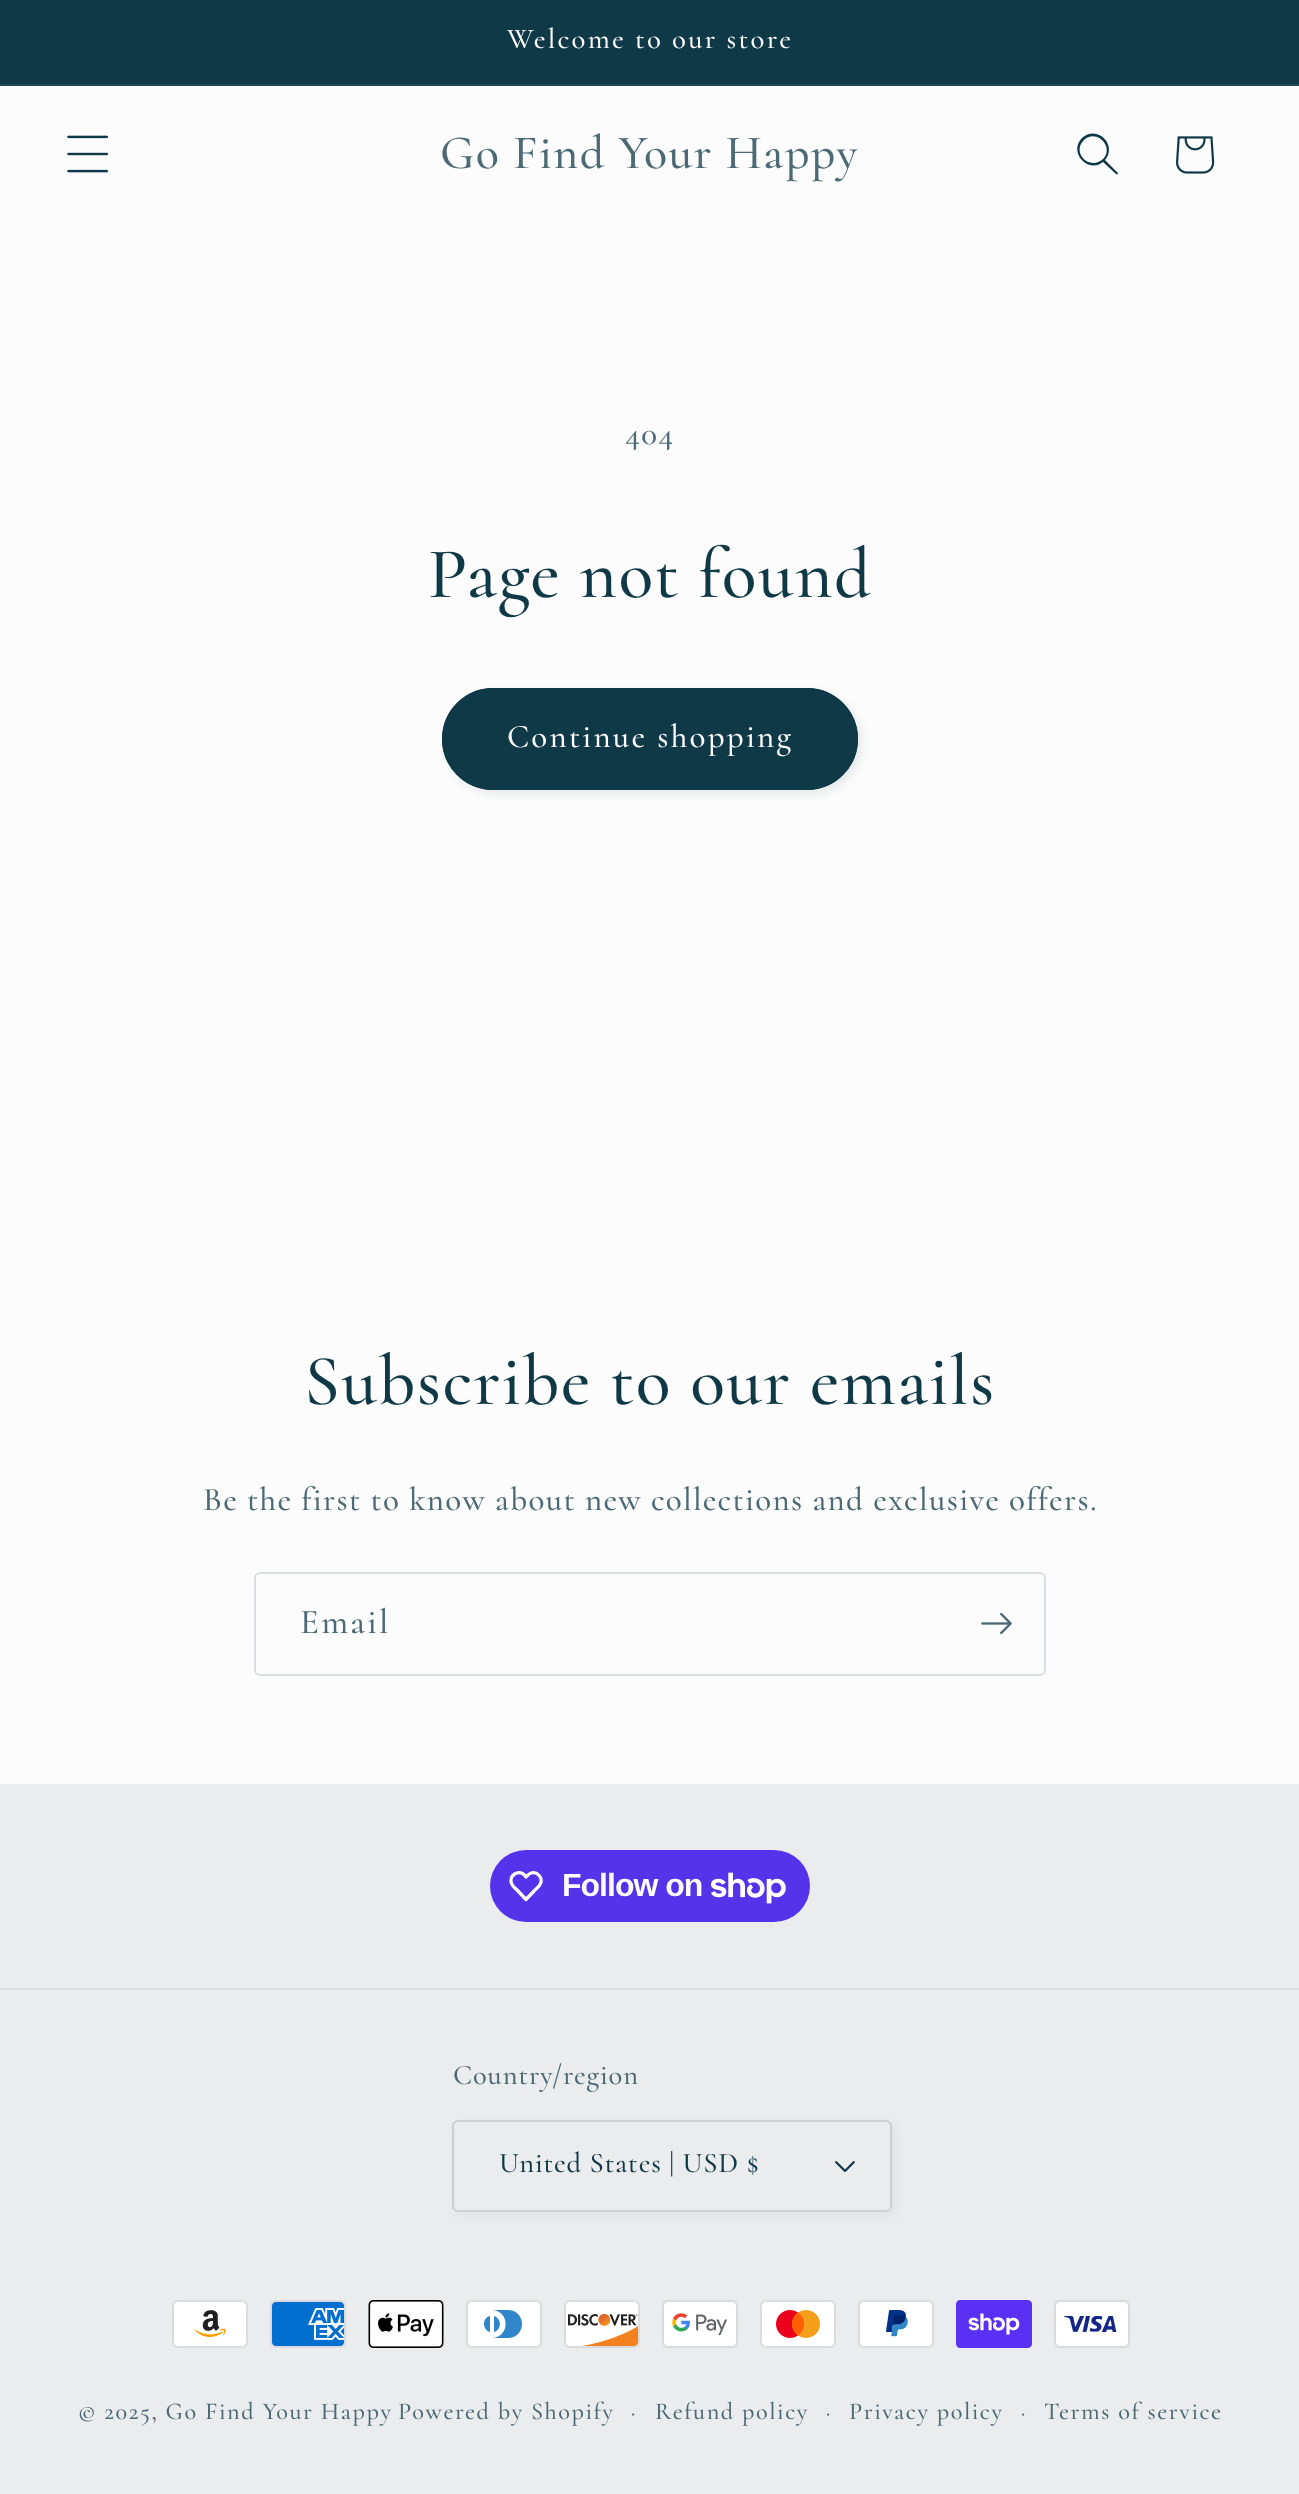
<svg xmlns="http://www.w3.org/2000/svg" width="1299" height="2494" viewBox="0 0 1299 2494">
  <rect width="100%" height="100%" fill="#fcfcfc"/>
  <path d="M0 0h1299v84H0z" fill="#103948"/>
  <path d="M0 84h1299v2H0z" fill="#234956"/>
  <image x="67" y="135" width="41" height="38" href="img/1.png"/>
  <path d="M1103 159C1090 171 1071 153 1084 140C1096 128 1115 147 1103 159M1103 162C1088 174 1068 152 1082 138C1097 124 1118 145 1105 160L1118 173C1118 174 1117 175 1116 174Z" fill="#103948" fill-rule="evenodd"/>
  <image x="1176" y="136" width="39" height="38" href="img/2.png"/>
  <rect x="446" y="692" width="416" height="102" rx="51" fill="#1039481a" filter="blur(5px)"/>
  <rect x="442" y="688" width="416" height="102" rx="51" fill="#103948"/>
  <rect x="443" y="689" width="414" height="100" rx="50" fill="none" stroke="#103948" stroke-width="2"/>
  <rect x="255" y="1573" width="790" height="102" rx="5" fill="none" stroke="#d9dfe1" stroke-width="2"/>
  <image x="981" y="1612" width="31" height="23" href="img/3.png"/>
  <path d="M0 1784h1299v710H0z" fill="#ebeced"/>
  <rect x="490" y="1850" width="320" height="72" rx="36" fill="#5433eb"/>
  <path d="M524.5 1875L526 1877C527.5 1875.5 529 1873.5 531 1873C537 1871 543 1877.5 540.5 1883.5C539.5 1886.5 536.5 1888.5 534.5 1890.5L526 1899.5L517.5 1890.5C515.5 1888.5 512.5 1886.5 511.5 1883.5C508.5 1875.5 518.5 1869 524.5 1875Z" fill="none" stroke="#fff" stroke-width="3.3" stroke-linejoin="round"/>
  <image x="711" y="1872" width="75" height="32" href="img/4.png"/>
  <path d="M0 1988h1299v2H0z" fill="#d9dee0"/>
  <rect x="456" y="2124" width="440" height="92" rx="6" fill="#1039480d" filter="blur(5px)"/>
  <rect x="452" y="2120" width="440" height="92" rx="6" fill="#ebeced"/>
  <image x="835" y="2161" width="20" height="11" href="img/5.png"/>
  <rect x="453" y="2121" width="438" height="90" rx="5" fill="none" stroke="#cad1d4" stroke-width="2"/>
  <image x="172" y="2300" width="76" height="48" href="img/6.png"/>
  <image x="270" y="2300" width="76" height="48" href="img/7.png"/>
  <image x="368" y="2300" width="76" height="48" href="img/8.png"/>
  <image x="466" y="2300" width="76" height="48" href="img/9.png"/>
  <image x="564" y="2300" width="76" height="48" href="img/10.png"/>
  <image x="662" y="2300" width="76" height="48" href="img/11.png"/>
  <image x="760" y="2300" width="76" height="48" href="img/12.png"/>
  <image x="858" y="2300" width="76" height="48" href="img/13.png"/>
  <image x="956" y="2300" width="76" height="48" href="img/14.png"/>
  <image x="1054" y="2300" width="76" height="48" href="img/15.png"/>
  <text x="507" y="48" font-family="Cormorant" font-size="28.75" font-weight="500" letter-spacing="2.25" fill="#fcfcfc">Welcome to our store</text>
  <text x="440" y="168" font-family="Cormorant" font-size="48" font-weight="500" letter-spacing="1.4" fill="#4b6a75">Go Find Your Happy</text>
  <text x="625" y="444" font-family="Cormorant" font-size="33" font-weight="500" letter-spacing="1.32" fill="#4b6a75">404</text>
  <text x="428" y="597" font-family="Cormorant" font-size="72" font-weight="500" letter-spacing="1.4" fill="#103948">Page not found</text>
  <text x="507" y="747" font-family="Cormorant" font-size="33" font-weight="500" letter-spacing="2.25" fill="#fcfcfc">Continue shopping</text>
  <text x="304" y="1404" font-family="Cormorant" font-size="72" font-weight="500" letter-spacing="1.4" fill="#103948">Subscribe to our emails</text>
  <text x="203" y="1510" font-family="Cormorant" font-size="33" font-weight="500" letter-spacing="1.32" fill="#4b6a75">Be the first to know about new collections and exclusive offers.</text>
  <text x="300" y="1633" font-family="Cormorant" font-size="35" font-weight="500" letter-spacing="2.25" fill="#4b6a75">Email</text>
  <text x="562" y="1896" font-family="Liberation Sans" font-size="32" font-weight="bold" letter-spacing="-1" fill="#fcfcfc">Follow on</text>
  <text x="453" y="2084" font-family="Cormorant" font-size="28.5" font-weight="500" letter-spacing="0.9" fill="#4b6a75">Country/region</text>
  <text x="499" y="2172" font-family="Cormorant" font-size="28.5" font-weight="500" letter-spacing="0.9" fill="#103948">United States | USD $</text>
  <g font-family="Cormorant" font-size="24.25" font-weight="500" letter-spacing="1.55" fill="#4b6a75">
    <text x="78" y="2419">© 2025, Go Find Your Happy</text>
    <text x="398" y="2419">Powered by Shopify</text>
  </g>
  <text x="631" y="2419" font-family="Cormorant" font-size="22" font-weight="500" letter-spacing="1.55" fill="#4b6a75">·</text>
  <text x="655" y="2419" font-family="Cormorant" font-size="24.25" font-weight="500" letter-spacing="1.55" fill="#4b6a75">Refund policy</text>
  <text x="826" y="2419" font-family="Cormorant" font-size="22" font-weight="500" letter-spacing="1.55" fill="#4b6a75">·</text>
  <text x="849" y="2419" font-family="Cormorant" font-size="24.25" font-weight="500" letter-spacing="1.55" fill="#4b6a75">Privacy policy</text>
  <text x="1021" y="2419" font-family="Cormorant" font-size="22" font-weight="500" letter-spacing="1.55" fill="#4b6a75">·</text>
  <text x="1044" y="2419" font-family="Cormorant" font-size="24.25" font-weight="500" letter-spacing="1.55" fill="#4b6a75">Terms of service</text>
</svg>
